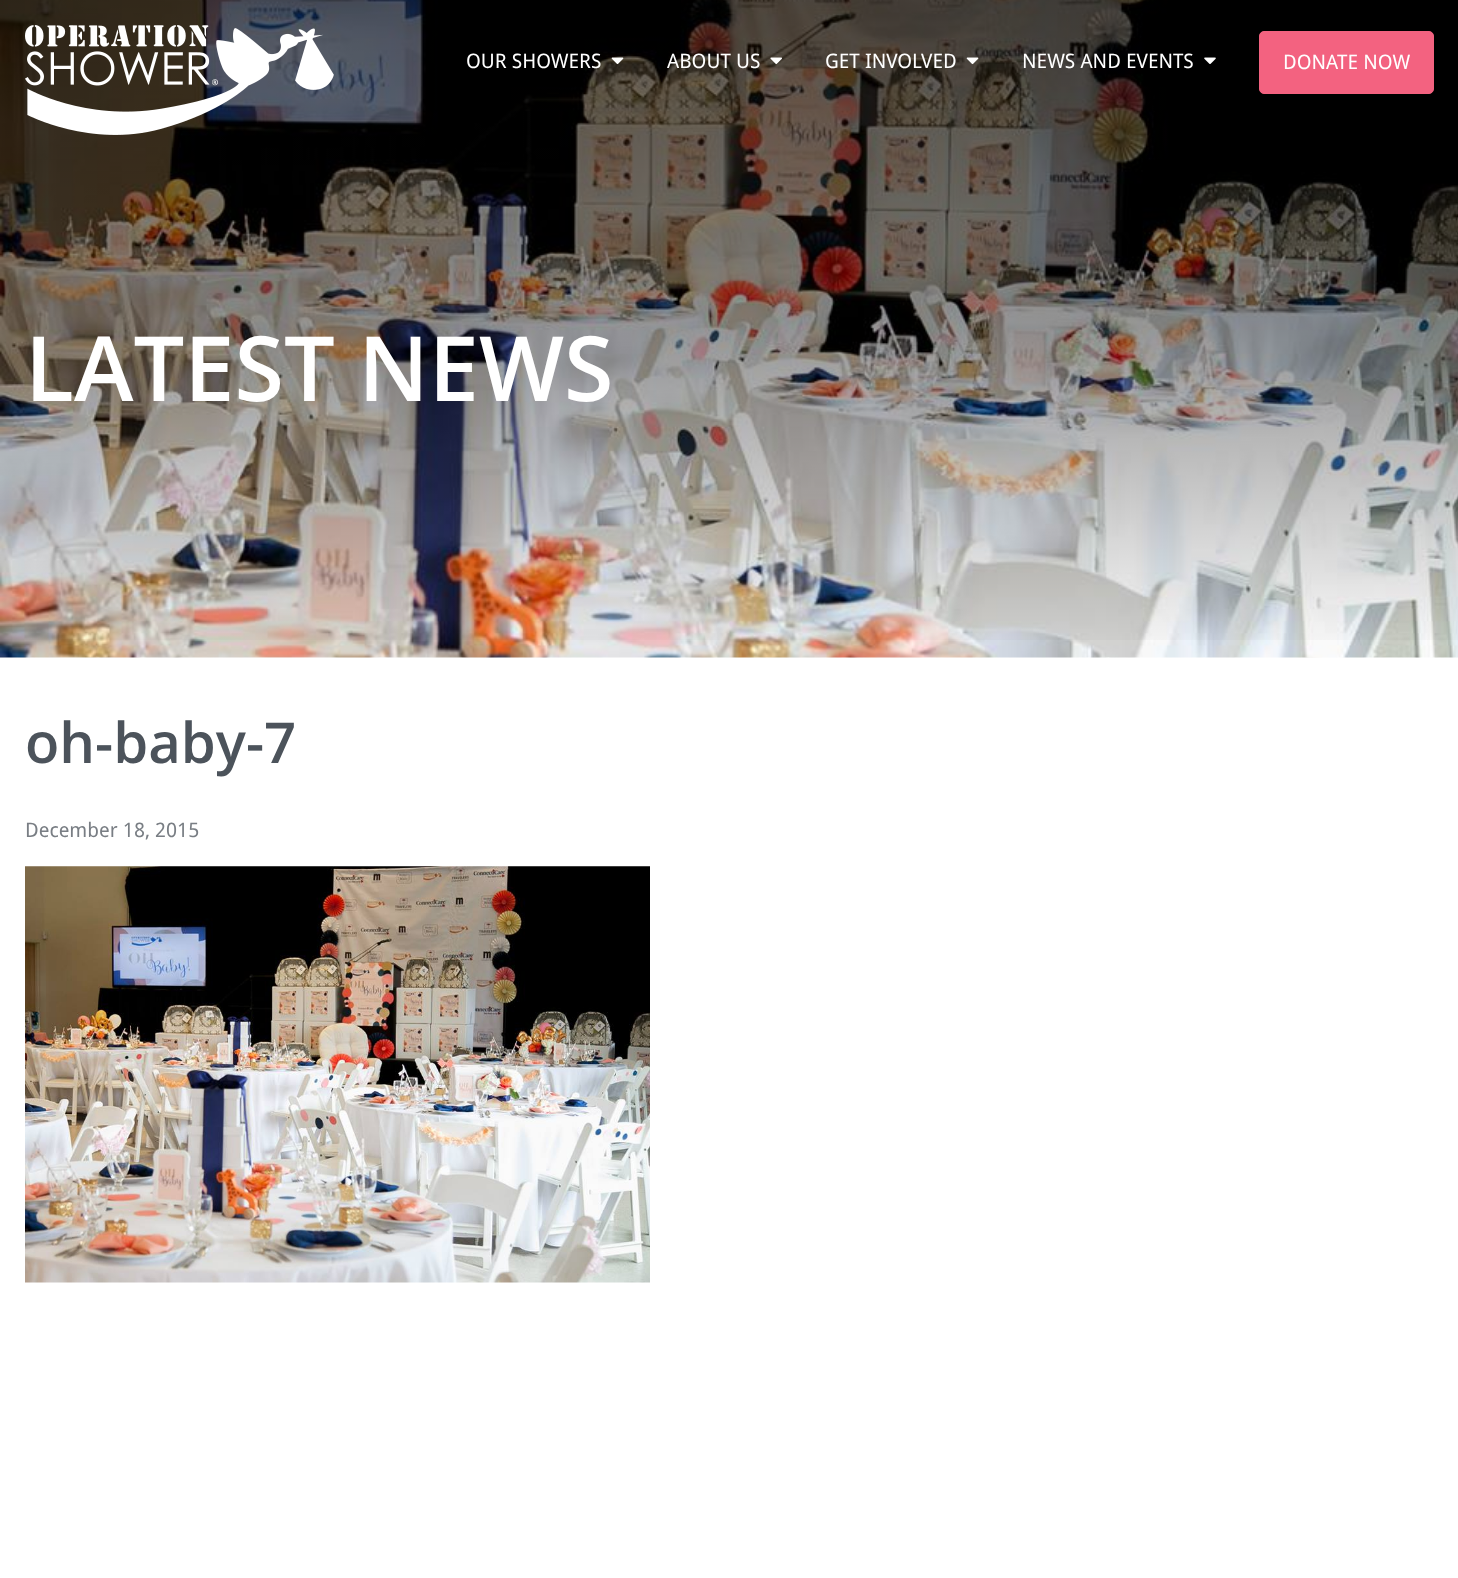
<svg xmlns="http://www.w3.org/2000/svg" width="1458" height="1578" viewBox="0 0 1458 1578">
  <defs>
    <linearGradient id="g1" gradientUnits="userSpaceOnUse" x1="729" y1="0" x2="729" y2="658"><stop offset="0" stop-color="#000" stop-opacity="0.6"/><stop offset="0.5" stop-color="#000" stop-opacity="0.4"/><stop offset="1" stop-color="#000" stop-opacity="0"/></linearGradient>
  </defs>
  <rect width="100%" height="100%" fill="#fff"/>
  <image x="0" y="0" width="1458" height="658" href="img/6.png"/>
  <path d="M0 0h1458v640H0z" fill="url(#g1)"/>
  <image x="25" y="25" width="309" height="110" href="img/1.png"/>
  <image x="611" y="57" width="13" height="8" href="img/2.png"/>
  <image x="770" y="57" width="12" height="8" href="img/3.png"/>
  <image x="966" y="57" width="13" height="8" href="img/4.png"/>
  <image x="1204" y="57" width="12" height="7" href="img/5.png"/>
  <rect x="1259.5" y="31.5" width="174" height="62" rx="4.5" fill="#f36280" stroke="#f36280"/>
  <image x="25" y="866" width="625" height="417" href="img/7.png"/>
  <g font-family="Droid Sans" font-size="20" fill="#fff">
    <text x="466" y="68">OUR SHOWERS</text>
    <text x="667" y="68">ABOUT US</text>
    <text x="825" y="68">GET INVOLVED</text>
    <text x="1022" y="68">NEWS AND EVENTS</text>
    <text x="1283" y="69">DONATE NOW</text>
  </g>
  <text x="25" y="401" font-family="Open Sans" font-size="90" font-weight="600" fill="#fff">LATEST NEWS</text>
  <text x="25" y="763" font-family="Open Sans" font-size="56.25" font-weight="600" fill="#4c535b">oh-baby-7</text>
  <text x="25" y="837" font-family="Droid Sans" font-size="20" fill="#797e84">December 18, 2015</text>
</svg>
